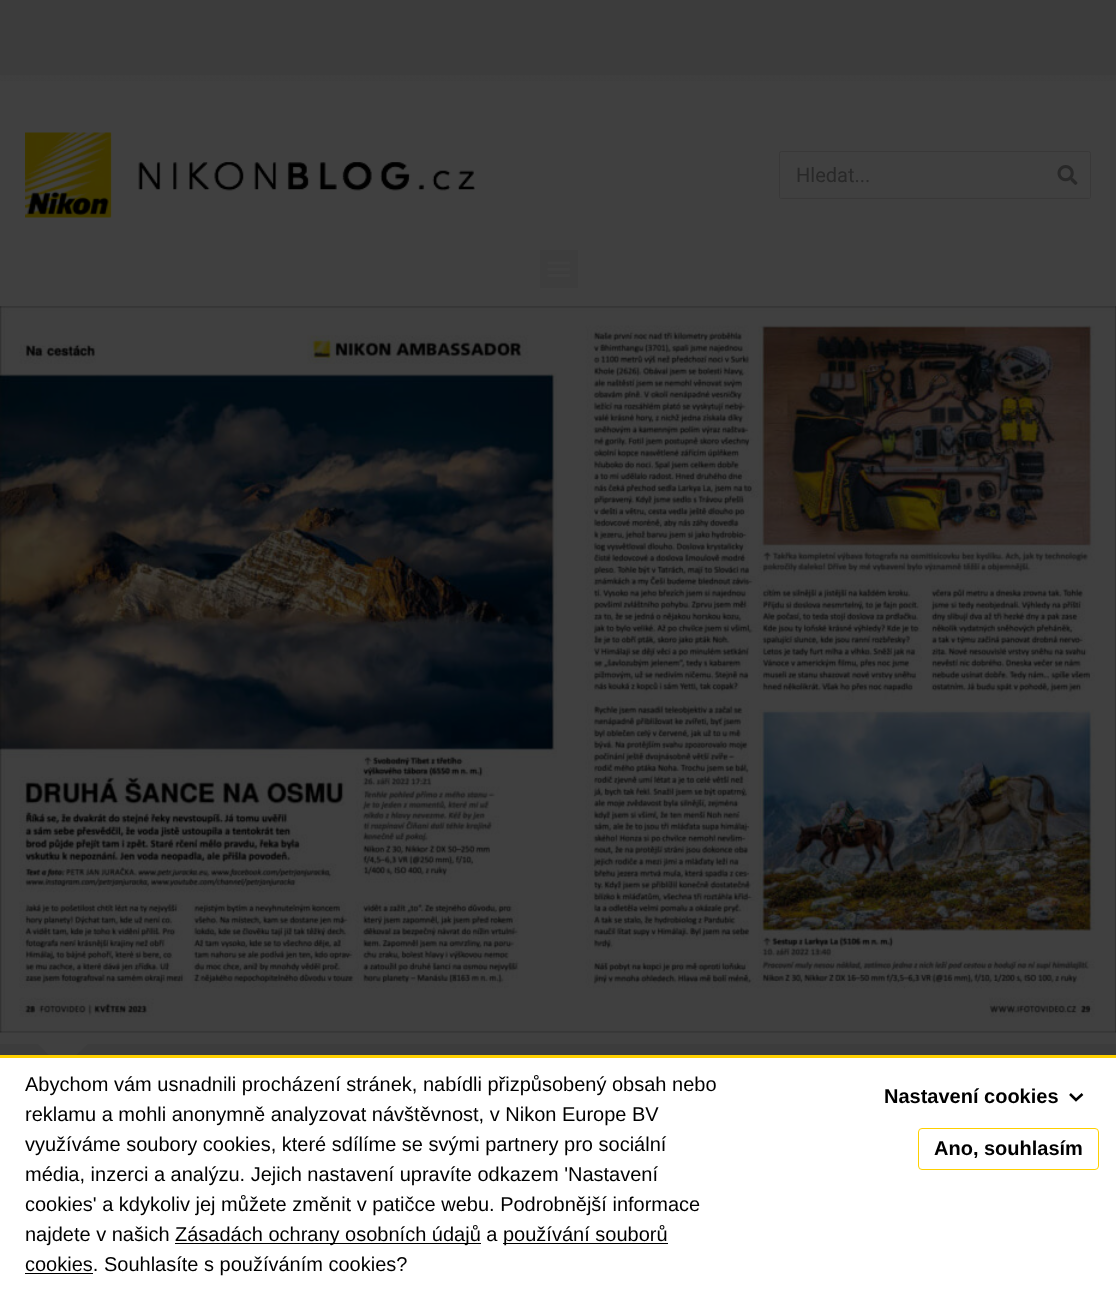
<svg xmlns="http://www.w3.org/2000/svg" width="1116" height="1292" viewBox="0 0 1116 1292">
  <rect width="100%" height="100%" fill="#3c3c3c"/>
  <path d="M0 75h1116v231H0z" fill="#404040"/>
  <image x="0" y="75" width="1116" height="6" href="img/1.png"/>
  <image x="25" y="132" width="450" height="86" href="img/2.png"/>
  <rect x="779.5" y="151.5" width="311" height="47" rx="2" fill="none" stroke="#393838"/>
  <path d="M780 197h310v1H780z" fill="#3f3f3f"/>
  <image x="1057" y="165" width="21" height="20" href="img/3.png"/>
  <path d="M540 250h38v38H540z" fill="#3d3d3d"/>
  <image x="547" y="261" width="23" height="16" href="img/4.png"/>
  <path d="M0 306h1116v738H0z" fill="#404040"/>
  <image x="0" y="306" width="1116" height="727" href="img/5.png"/>
  <path d="M38 1044H88L62 1069Z" fill="#404040"/>
  <path d="M0 1058h1116v234H0z" fill="#fff"/>
  <path d="M0 1055h1116v3H0z" fill="#fed000"/>
  <path d="M175 1243h306v1H175z" fill="#000"/>
  <path d="M503 1243h165v1H503z" fill="#000"/>
  <path d="M25 1273h68v1H25z" fill="#000"/>
  <path d="M1070 1094L1076 1100L1082.5 1094" fill="none" stroke="#000" stroke-width="2.5"/>
  <rect x="918.5" y="1128.5" width="180" height="41" rx="3.5" fill="none" stroke="#fed000"/>
  <text x="796" y="182" font-family="Roboto" font-size="20" fill="#282828">Hledat...</text>
  <g font-family="Liberation Sans" font-size="20" fill="#000">
    <text x="25" y="1091">Abychom vám usnadnili procházení stránek, nabídli přizpůsobený obsah nebo</text>
    <text x="25" y="1121">reklamu a mohli anonymně analyzovat návštěvnost, v Nikon Europe BV</text>
    <text x="25" y="1151">využíváme soubory cookies, které sdílíme se svými partnery pro sociální</text>
    <text x="25" y="1181">média, inzerci a analýzu. Jejich nastavení upravíte odkazem 'Nastavení</text>
    <text x="25" y="1211">cookies' a kdykoliv jej můžete změnit v patičce webu. Podrobnější informace</text>
    <text x="25" y="1241">najdete v našich</text>
    <text x="175" y="1241">Zásadách ochrany osobních údajů a</text>
    <text x="503" y="1241">používání souborů</text>
    <text x="25" y="1271">cookies. Souhlasíte s používáním cookies?</text>
  </g>
  <g font-family="Liberation Sans" font-size="20" font-weight="bold" fill="#000">
    <text x="884" y="1103">Nastavení cookies</text>
    <text x="934" y="1155">Ano, souhlasím</text>
  </g>
</svg>
